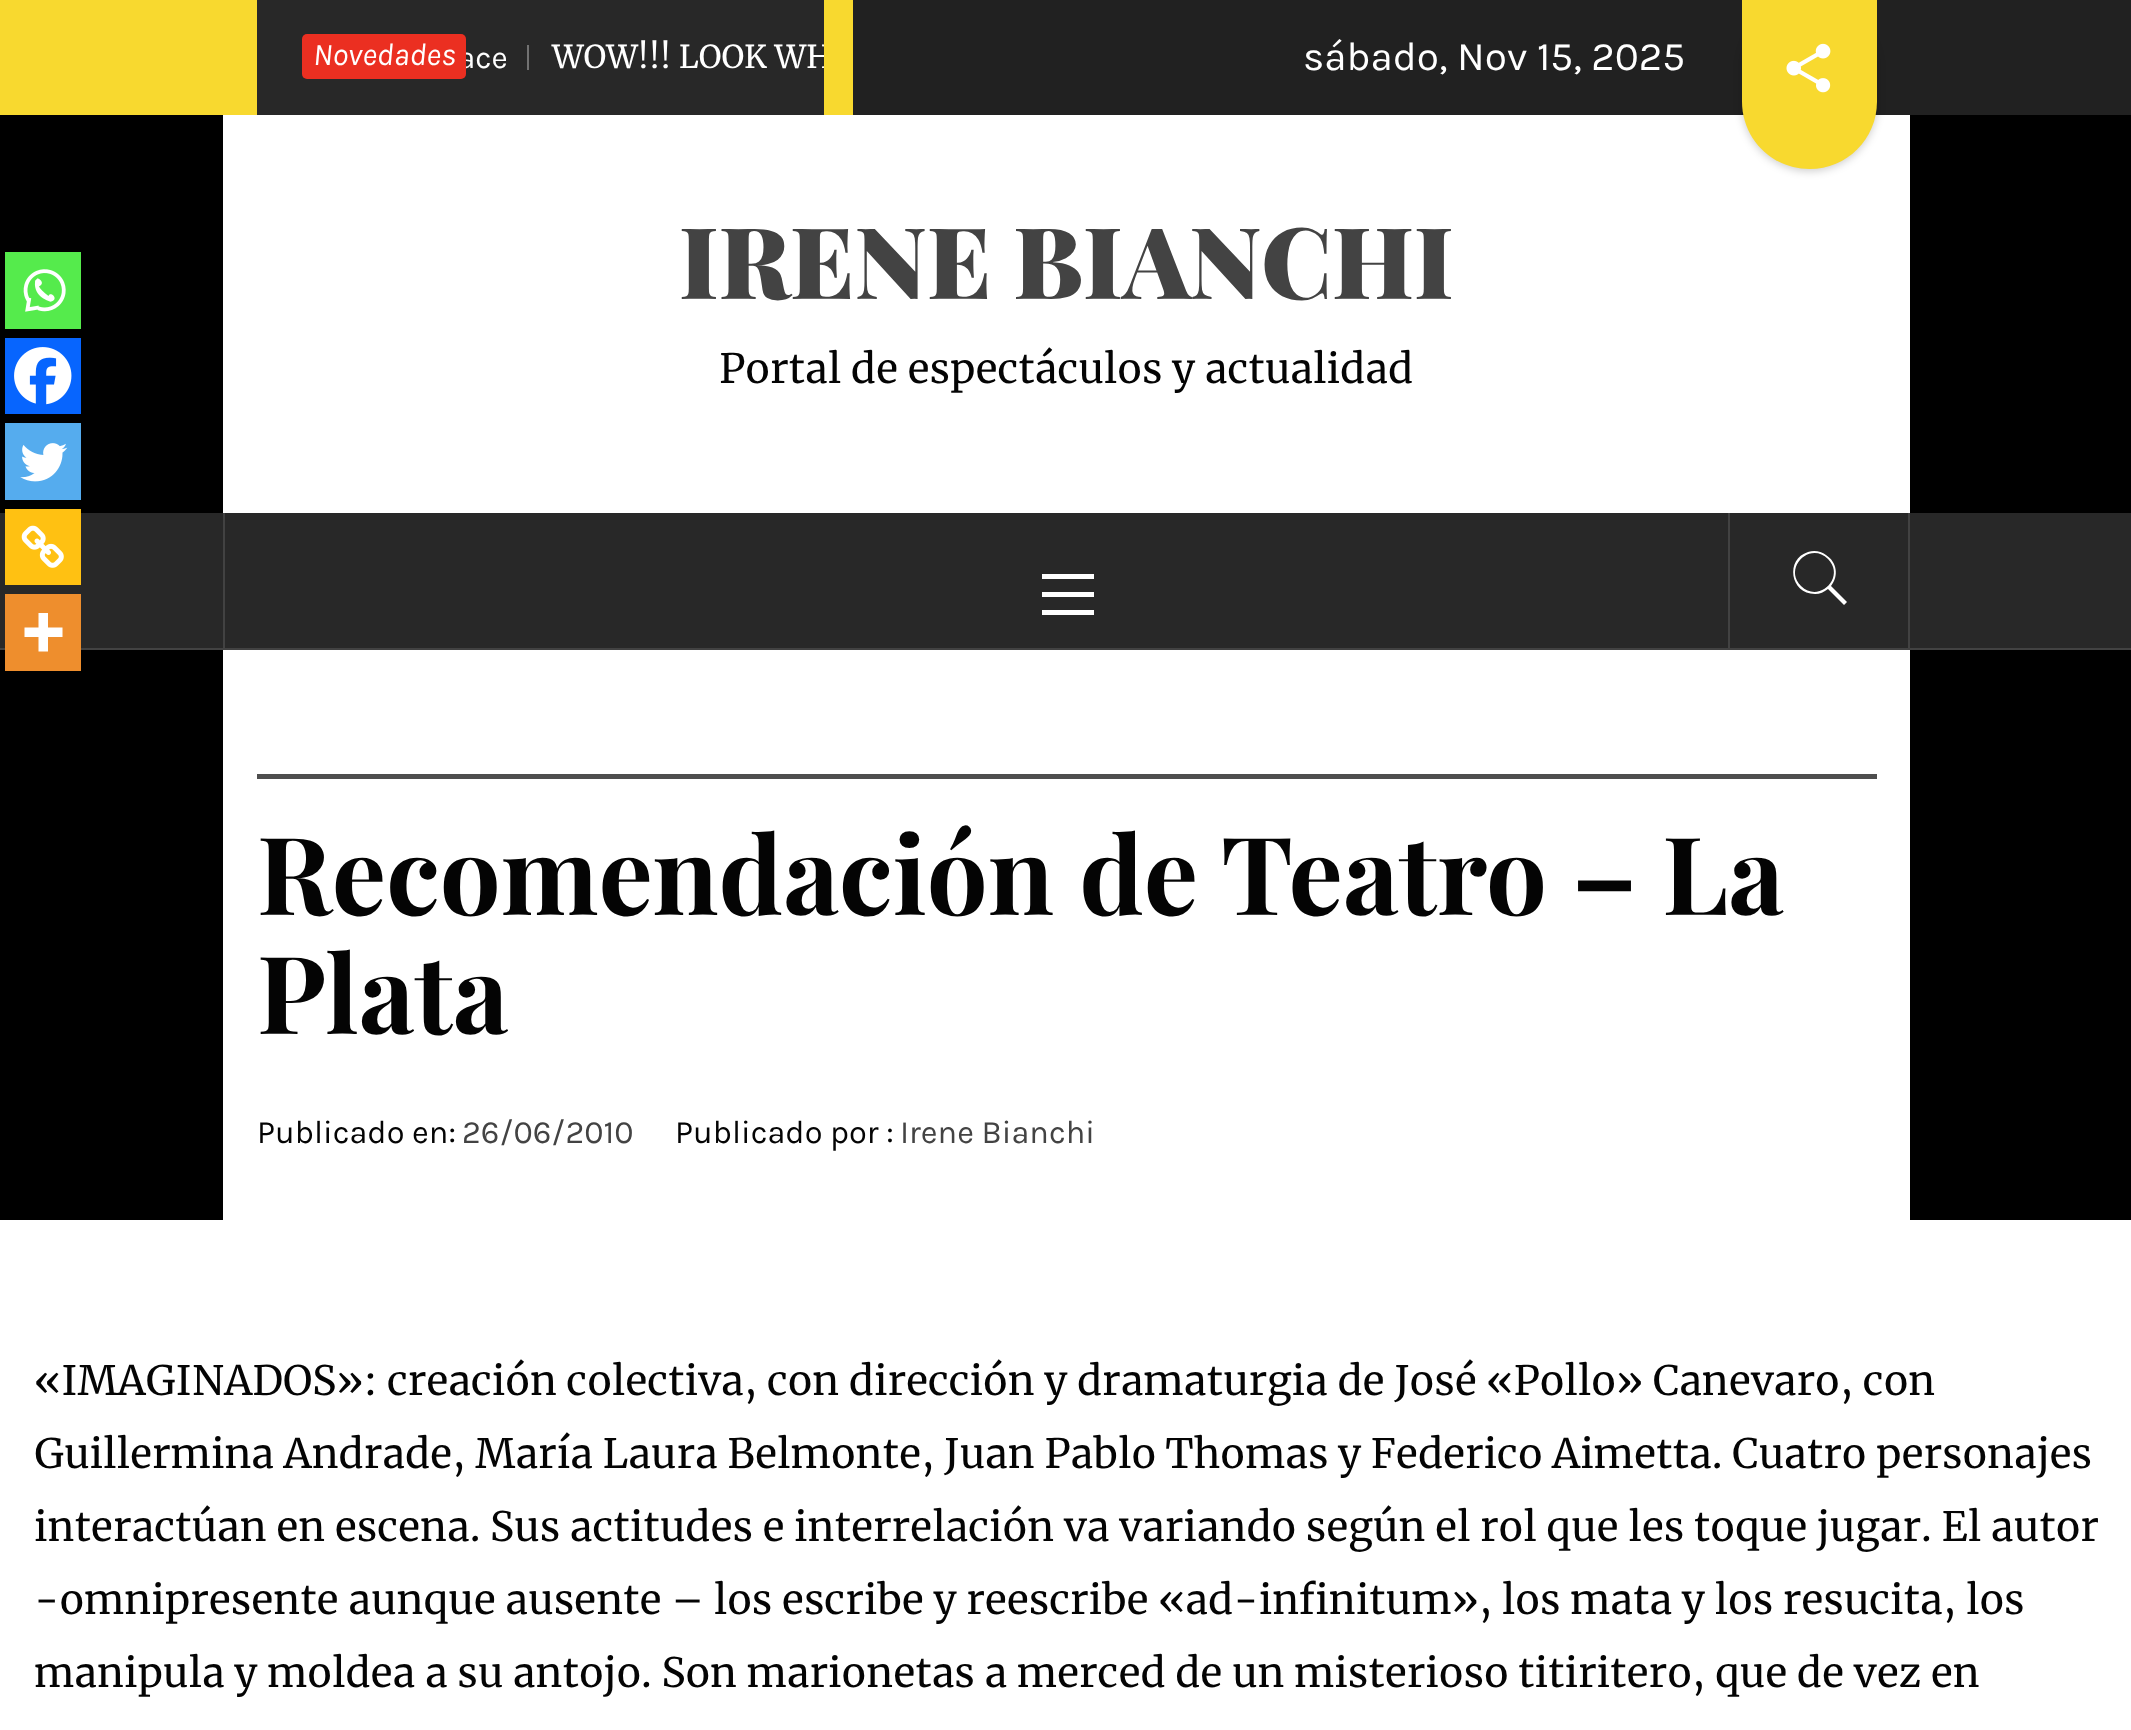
<svg xmlns="http://www.w3.org/2000/svg" width="2131" height="1730" viewBox="0 0 2131 1730">
  <defs>
    <clipPath id="clip1"><path d="M257 0h567v115H257z"/></clipPath>
  </defs>
  <rect width="100%" height="100%" fill="#000"/>
  <path d="M0 0h853v115H0z" fill="#f8d92f"/>
  <path d="M853 0h1278v115H853z" fill="#212121"/>
  <path d="M257 0h567v115H257z" fill="#282828"/>
  <path d="M527 45h2v25H527z" fill="#727272"/>
  <path d="M223 115h1687v398H223z" fill="#fff"/>
  <rect x="1742" y="2" width="135" height="169" rx="67.5" fill="#00000033" filter="blur(4.5px)"/>
  <path d="M1742 0H1877V101.5C1877 139 1847 169 1809.5 169C1772 169 1742 139 1742 101.5Z" fill="#f8d92f"/>
  <image x="1786" y="43" width="45" height="50" href="img/1.png"/>
  <path d="M0 513h2131v135H0z" fill="#282828"/>
  <path d="M0 648h2131v2H0z" fill="#424242"/>
  <path d="M1908 513h2v135H1908z" fill="#424242"/>
  <path d="M223 513h2v135H223z" fill="#424242"/>
  <path d="M1042 592h52v5H1042z" fill="#fff"/>
  <path d="M1042 574h52v5H1042z" fill="#fff"/>
  <path d="M1042 610h52v5H1042z" fill="#fff"/>
  <path d="M1728 513h2v135H1728z" fill="#424242"/>
  <path d="M1847 602L1844 605L1828 589C1824 592 1820 594 1815 594C1790 594 1785 559 1808 552C1814 550 1821 551 1826 555C1837 562 1839 576 1831 586ZM1801 586C1819 604 1846 577 1828 559C1810 541 1783 568 1801 586Z" fill="#fff"/>
  <path d="M223 650h1687v570H223z" fill="#fff"/>
  <path d="M257 774h1620v5H257z" fill="#4e4e4e"/>
  <path d="M0 1220h2131v510H0z" fill="#fff"/>
  <path d="M5 252h76v77H5z" fill="#55eb4c"/>
  <image x="23" y="269" width="43" height="43" href="img/2.png"/>
  <path d="M5 338h76v76H5z" fill="#0765fe"/>
  <image x="14" y="347" width="58" height="58" href="img/3.png"/>
  <path d="M5 423h76v77H5z" fill="#55acee"/>
  <image x="20" y="443" width="48" height="39" href="img/4.png"/>
  <path d="M5 509h76v76H5z" fill="#ffc112"/>
  <image x="21" y="525" width="43" height="43" href="img/5.png"/>
  <path d="M5 594h76v77H5z" fill="#ee8e2d"/>
  <path d="M48 627.5V613H38.5V627.5H24.5V637H38.5V651.5H48V637H62.5V627.5Z" fill="#fff" fill-rule="evenodd"/>
  <text x="458" y="68" font-family="Karla" font-size="31.5" fill="#fff">ace</text>
  <rect x="302" y="34" width="164" height="45" rx="5" fill="#eb2f21"/>
  <text x="313" y="65" font-family="Karla" font-size="31.5" font-style="italic" fill="#fff">Novedades</text>
  <g clip-path="url(#clip1)">
    <text x="552" y="68" font-family="Merriweather" font-size="31.5" fill="#fff">WOW!!! LOOK WH</text>
  </g>
  <text x="1303" y="70" font-family="Karla" font-size="40.5" fill="#fff">sábado, Nov 15, 2025</text>
  <text x="679" y="299" font-family="Playfair Display" font-size="99" font-weight="900" fill="#434343">IRENE BIANCHI</text>
  <text x="719" y="383" font-family="Merriweather" font-size="40.5" fill="#040404">Portal de espectáculos y actualidad</text>
  <g font-family="Playfair Display" font-size="108" font-weight="bold" fill="#040404">
    <text x="257" y="915">Recomendación de Teatro – La</text>
    <text x="257" y="1034">Plata</text>
  </g>
  <text x="257" y="1143" font-family="Karla" font-size="32.5" fill="#040404">Publicado en:</text>
  <text x="462" y="1143" font-family="Karla" font-size="32.5" fill="#434343">26/06/2010</text>
  <text x="675" y="1143" font-family="Karla" font-size="32.5" fill="#040404">Publicado por :</text>
  <text x="900" y="1143" font-family="Karla" font-size="32.5" fill="#434343">Irene Bianchi</text>
  <g font-family="Merriweather" font-size="40.5" fill="#040404">
    <text x="34" y="1395">«IMAGINADOS»: creación colectiva, con dirección y dramaturgia de José «Pollo» Canevaro, con</text>
    <text x="34" y="1468">Guillermina Andrade, María Laura Belmonte, Juan Pablo Thomas y Federico Aimetta. Cuatro personajes</text>
    <text x="34" y="1541">interactúan en escena. Sus actitudes e interrelación va variando según el rol que les toque jugar. El autor</text>
    <text x="34" y="1614">-omnipresente aunque ausente – los escribe y reescribe «ad-infinitum», los mata y los resucita, los</text>
    <text x="34" y="1687">manipula y moldea a su antojo. Son marionetas a merced de un misterioso titiritero, que de vez en</text>
  </g>
</svg>
